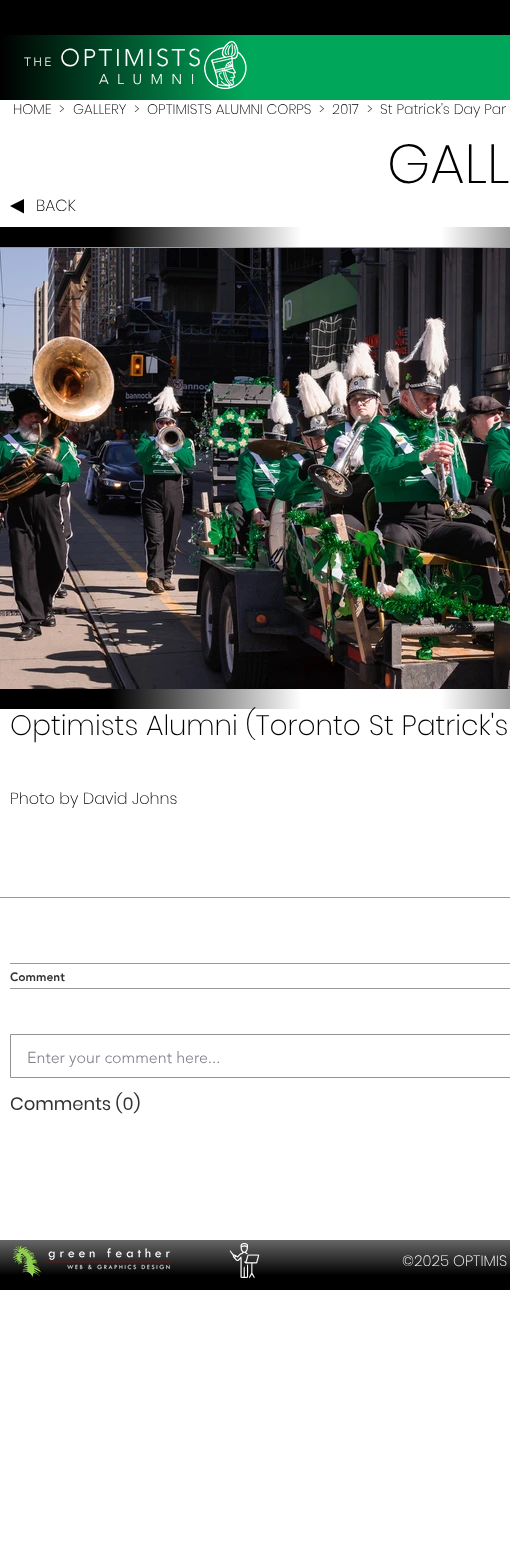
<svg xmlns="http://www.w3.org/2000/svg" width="510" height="1541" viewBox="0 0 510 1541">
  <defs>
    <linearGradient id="g1" gradientUnits="userSpaceOnUse" x1="0" y1="68" x2="245" y2="67"><stop offset="0" stop-color="#000"/><stop offset="1" stop-color="#00a659"/></linearGradient>
    <linearGradient id="g2" gradientUnits="userSpaceOnUse" x1="0" y1="468" x2="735" y2="468"><stop offset="0.15" stop-color="#000"/><stop offset="0.41" stop-color="#fff"/><stop offset="0.6" stop-color="#fff"/><stop offset="0.85" stop-color="#000"/></linearGradient>
    <linearGradient id="g3" gradientUnits="userSpaceOnUse" x1="490" y1="1290" x2="490" y2="1240"><stop offset="0.29" stop-color="#000"/><stop offset="1" stop-color="#666"/></linearGradient>
  </defs>
  <rect width="100%" height="100%" fill="#fff"/>
  <path d="M0 0h510v35H0z" fill="#000"/>
  <path d="M0 35h245v65H0z" fill="url(#g1)"/>
  <path d="M245 35h265v65H245z" fill="#00a659"/>
  <image x="204" y="40" width="43" height="50" href="img/1.png"/>
  <path d="M24 213.5L10 206L24 199Z" fill="#000"/>
  <path d="M0 227h510v482H0z" fill="url(#g2)"/>
  <path d="M0 247h510v1H0z" fill="#999"/>
  <image x="0" y="248" width="510" height="441" href="img/2.png"/>
  <path d="M0 897h510v1H0z" fill="#999"/>
  <path d="M10 963h500v1H10z" fill="#999"/>
  <path d="M10 988h500v1H10z" fill="#999"/>
  <path d="M10.5 1034.5h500v43H10.5z" fill="none" stroke="#919191"/>
  <path d="M0 1240h510v50H0z" fill="url(#g3)"/>
  <image x="12" y="1245" width="161" height="33" href="img/3.png"/>
  <image x="229" y="1243" width="31" height="35" href="img/4.png"/>
  <text x="24" y="66" font-family="'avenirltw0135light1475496'" font-size="12" font-weight="300" letter-spacing="2.4" fill="#fff">THE</text>
  <text x="60" y="66" font-family="'avenirltw0135light1475496'" font-size="24" font-weight="300" letter-spacing="2.4" fill="#fff">OPTIMISTS</text>
  <text x="99" y="84" font-family="'avenirltw0135light1475496'" font-size="14" font-weight="300" letter-spacing="2.4" fill="#fff">A L U M N I</text>
  <g font-family="Poppins" font-size="14" font-weight="200" fill="#000">
    <text x="13" y="114">HOME</text>
    <text x="59" y="114">&gt;</text>
    <text x="73" y="114">GALLERY</text>
    <text x="134" y="114">&gt;</text>
    <text x="147" y="114">OPTIMISTS ALUMNI CORPS</text>
    <text x="319" y="114">&gt;</text>
    <text x="332" y="114">2017</text>
    <text x="367" y="114">&gt;</text>
    <text x="380" y="114">St Patrick's Day Par</text>
  </g>
  <text x="387" y="183" font-family="Poppins" font-size="55" font-weight="200" fill="#000">GALL</text>
  <text x="36" y="211" font-family="Poppins" font-size="16" font-weight="200" fill="#000">BACK</text>
  <text x="10" y="735" font-family="Poppins" font-size="28" font-weight="200" fill="#000">Optimists Alumni (Toronto St Patrick's</text>
  <text x="10" y="804" font-family="Poppins" font-size="16" font-weight="200" fill="#000">Photo by David Johns</text>
  <text x="10" y="981" font-family="'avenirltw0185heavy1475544'" font-size="12" font-weight="900" fill="#333">Comment</text>
  <text x="27" y="1063" font-family="'avenirltw0135light1475496'" font-size="16" font-weight="300" fill="#7f808a">Enter your comment here...</text>
  <text x="10" y="1110" font-family="Poppins" font-size="18" fill="#333">Comments (0)</text>
  <text x="402" y="1266" font-family="Poppins" font-size="15" font-weight="200" fill="#fff">©2025 OPTIMIS</text>
</svg>
